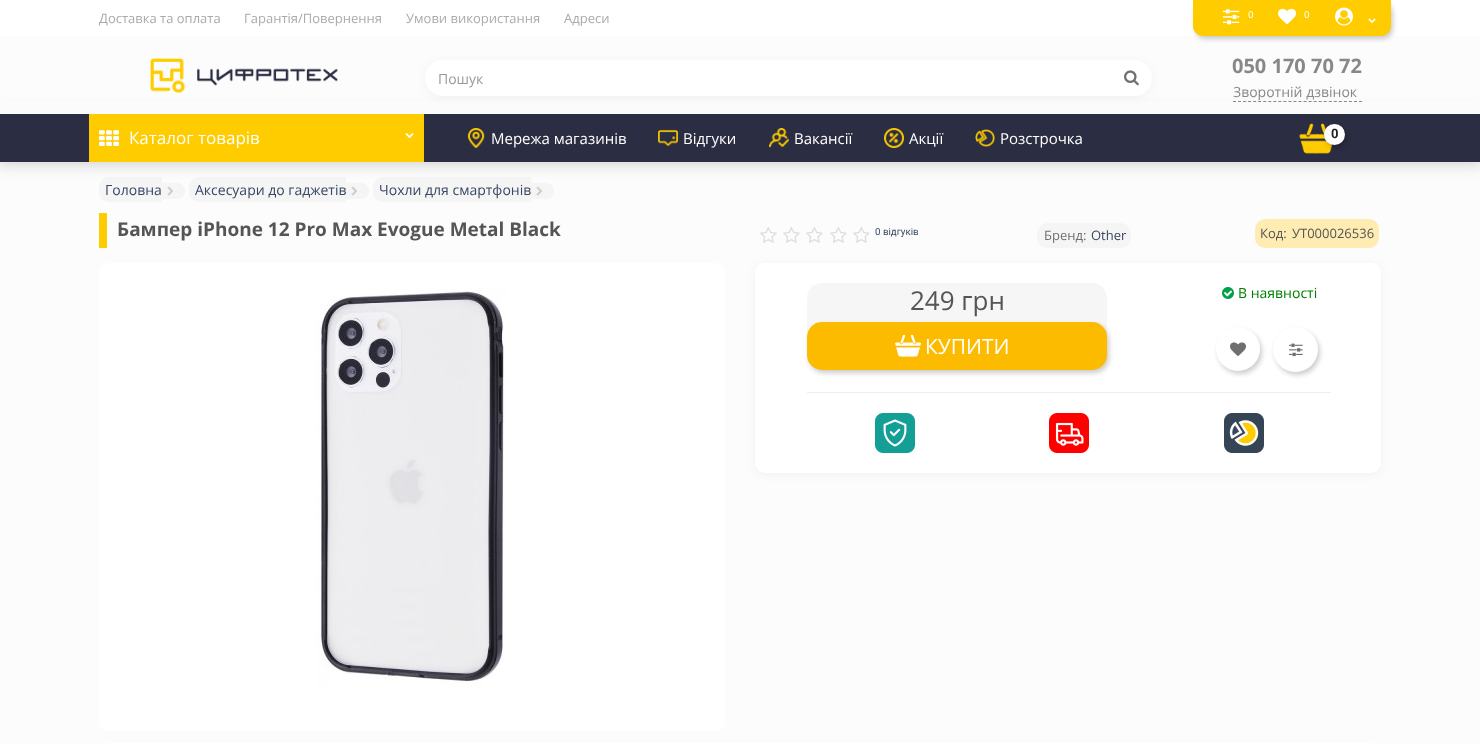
<svg xmlns="http://www.w3.org/2000/svg" width="1480" height="744" viewBox="0 0 1480 744">
  <rect width="100%" height="100%" fill="#fcfcfc"/>
  <path d="M0 0h1480v36H0z" fill="#fff"/>
  <rect x="1195" y="3" width="198" height="36" rx="10" fill="#00010133" filter="blur(2.5px)"/>
  <path d="M1193 0H1391V26C1391 31.5 1386.5 36 1381 36H1203C1197.5 36 1193 31.5 1193 26Z" fill="#fc0"/>
  <image x="1223" y="9" width="17" height="16" href="img/1.png"/>
  <image x="1278" y="8" width="18" height="17" href="img/2.png"/>
  <image x="1335" y="7" width="18" height="19" href="img/3.png"/>
  <image x="1368" y="18" width="8" height="6" href="img/4.png"/>
  <path d="M109 177H162V202H109C103.5 202 99 197.5 99 192V187C99 181.5 103.5 177 109 177Z" fill="#f5f5f5"/>
  <path d="M162 183H177C181.5 183 185 186.5 185 191C185 195.5 181.5 199 177 199H162Z" fill="#f5f5f5"/>
  <image x="167" y="186" width="6" height="10" href="img/15.png"/>
  <path d="M199 177H346V202H199C193.5 202 189 197.5 189 192V187C189 181.5 193.5 177 199 177Z" fill="#f5f5f5"/>
  <path d="M346 183H361C365.5 183 369 186.5 369 191C369 195.5 365.5 199 361 199H346Z" fill="#f5f5f5"/>
  <image x="351" y="186" width="6" height="10" href="img/15.png"/>
  <path d="M383 177H531V202H383C377.5 202 373 197.5 373 192V187C373 181.5 377.5 177 383 177Z" fill="#f5f5f5"/>
  <path d="M531 183H546C550.5 183 554 186.5 554 191C554 195.5 550.5 199 546 199H531Z" fill="#f5f5f5"/>
  <image x="536" y="186" width="6" height="10" href="img/15.png"/>
  <path d="M-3 111h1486v54H-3z" fill="#00000029" filter="blur(7.5px)"/>
  <path d="M0 101h1480v13H0z" fill="#fbfbfb"/>
  <image x="150" y="58" width="188" height="35" href="img/5.png"/>
  <rect x="425" y="62" width="727" height="36" rx="18" fill="#3030300d" filter="blur(5px)"/>
  <rect x="425" y="60" width="727" height="36" rx="18" fill="#fff"/>
  <image x="1124" y="70" width="15" height="16" href="img/6.png"/>
  <path d="M1233 101.5H1362" fill="none" stroke="#888" stroke-dasharray="3 2.04"/>
  <path d="M0 114h1480v48H0z" fill="#2b2d42"/>
  <path d="M89 114h335v48H89z" fill="#fc0"/>
  <image x="99" y="130" width="20" height="16" href="img/7.png"/>
  <image x="405" y="133" width="9" height="6" href="img/8.png"/>
  <image x="467" y="128" width="18" height="20" href="img/9.png"/>
  <image x="658" y="129" width="20" height="18" href="img/10.png"/>
  <image x="769" y="128" width="20" height="20" href="img/11.png"/>
  <image x="884" y="128" width="20" height="20" href="img/12.png"/>
  <image x="975" y="129" width="20" height="18" href="img/13.png"/>
  <image x="1299" y="123" width="34" height="31" href="img/14.png"/>
  <rect x="1326" y="127" width="21" height="21" rx="10.5" fill="#00010133" filter="blur(2.5px)"/>
  <circle cx="1334.5" cy="134.5" r="10.5" fill="#fff"/>
  <path d="M99 213h8v35H99z" fill="#fc0"/>
  <rect x="99" y="263" width="626" height="468" rx="10" fill="#fff"/>
  <image x="316" y="287" width="192" height="400" href="img/16.png"/>
  <image x="760" y="227" width="17" height="16" href="img/17.png"/>
  <image x="783" y="227" width="17" height="16" href="img/17.png"/>
  <image x="806" y="227" width="17" height="16" href="img/17.png"/>
  <image x="830" y="227" width="17" height="16" href="img/17.png"/>
  <image x="853" y="227" width="17" height="16" href="img/17.png"/>
  <rect x="1037" y="223" width="94" height="25" rx="10" fill="#f5f5f5"/>
  <rect x="1255" y="219" width="124" height="29" rx="10" fill="#ffecb2"/>
  <rect x="755" y="265" width="626" height="210" rx="10" fill="#3030300d" filter="blur(5px)"/>
  <rect x="755" y="263" width="626" height="210" rx="10" fill="#fff"/>
  <path d="M822 283H1092C1100.5 283 1107 289.5 1107 298V333H807V298C807 289.5 813.5 283 822 283Z" fill="#f6f6f6"/>
  <image x="1222" y="287" width="12" height="12" href="img/18.png"/>
  <rect x="809" y="325" width="300" height="48" rx="15" fill="#00010133" filter="blur(2.5px)"/>
  <rect x="807" y="322" width="300" height="48" rx="15" fill="#fdbb00"/>
  <image x="895" y="334" width="26" height="23" href="img/19.png"/>
  <rect x="1218" y="330" width="44" height="44" rx="22" fill="#00010133" filter="blur(2.5px)"/>
  <circle cx="1238" cy="349" r="22" fill="#fff"/>
  <image x="1230" y="342" width="16" height="14" href="img/20.png"/>
  <rect x="1275" y="330" width="45" height="45" rx="22.5" fill="#00010133" filter="blur(2.5px)"/>
  <circle cx="1295.5" cy="349.5" r="22.5" fill="#fff"/>
  <image x="1289" y="343" width="14" height="14" href="img/21.png"/>
  <path d="M807 392h524v1H807z" fill="#eee"/>
  <image x="875" y="413" width="40" height="40" href="img/22.png"/>
  <image x="1049" y="413" width="40" height="40" href="img/23.png"/>
  <image x="1224" y="413" width="40" height="40" href="img/24.png"/>
  <path d="M109 743H1371C1376.5 743 1381 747.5 1381 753V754H99V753C99 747.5 103.5 743 109 743Z" fill="#fff"/>
  <g font-family="Open Sans" font-size="13" fill="#aaa">
    <text x="99" y="23">Доставка та оплата</text>
    <text x="244" y="23">Гарантія/Повернення</text>
    <text x="406" y="23">Умови використання</text>
    <text x="564" y="23">Адреси</text>
  </g>
  <g font-family="Roboto" font-size="9.75" fill="#fff">
    <text x="1248" y="18">0</text>
    <text x="1304" y="18">0</text>
  </g>
  <text x="438" y="84" font-family="Open Sans" font-size="14" fill="#999">Пошук</text>
  <text x="1232" y="73" font-family="Open Sans" font-size="20" font-weight="bold" fill="#888">050 170 70 72</text>
  <text x="1233" y="97" font-family="Open Sans" font-size="14" fill="#888">Зворотній дзвінок</text>
  <text x="129" y="144" font-family="Open Sans" font-size="17" fill="#fff">Каталог товарів</text>
  <g font-family="Open Sans" font-size="15" fill="#fff">
    <text x="491" y="144">Мережа магазинів</text>
    <text x="683" y="144">Відгуки</text>
    <text x="794" y="144">Вакансії</text>
    <text x="909" y="144">Акції</text>
    <text x="1000" y="144">Розстрочка</text>
  </g>
  <text x="1331" y="138" font-family="Roboto" font-size="13" font-weight="bold" fill="#222">0</text>
  <g font-family="Open Sans" font-size="14" fill="#384861">
    <text x="105" y="195">Головна</text>
    <text x="195" y="195">Аксесуари до гаджетів</text>
    <text x="379" y="195">Чохли для смартфонів</text>
  </g>
  <text x="117" y="236" font-family="Open Sans" font-size="19" font-weight="bold" fill="#555">Бампер iPhone 12 Pro Max Evogue Metal Black</text>
  <text x="875" y="235" font-family="Roboto" font-size="9.75" fill="#384861">0 відгуків</text>
  <text x="1044" y="240" font-family="Open Sans" font-size="13" fill="#6f6f6f">Бренд:</text>
  <text x="1091" y="240" font-family="Open Sans" font-size="13" fill="#384861">Other</text>
  <g font-family="Open Sans" font-size="13" fill="#555">
    <text x="1260" y="238">Код:</text>
    <text x="1292" y="238">УТ000026536</text>
  </g>
  <text x="910" y="310" font-family="Open Sans" font-size="26" fill="#555">249 грн</text>
  <text x="1238" y="298" font-family="Open Sans" font-size="14" fill="#008000">В наявності</text>
  <text x="925" y="354" font-family="Open Sans" font-size="21" fill="#fff">КУПИТИ</text>
</svg>
